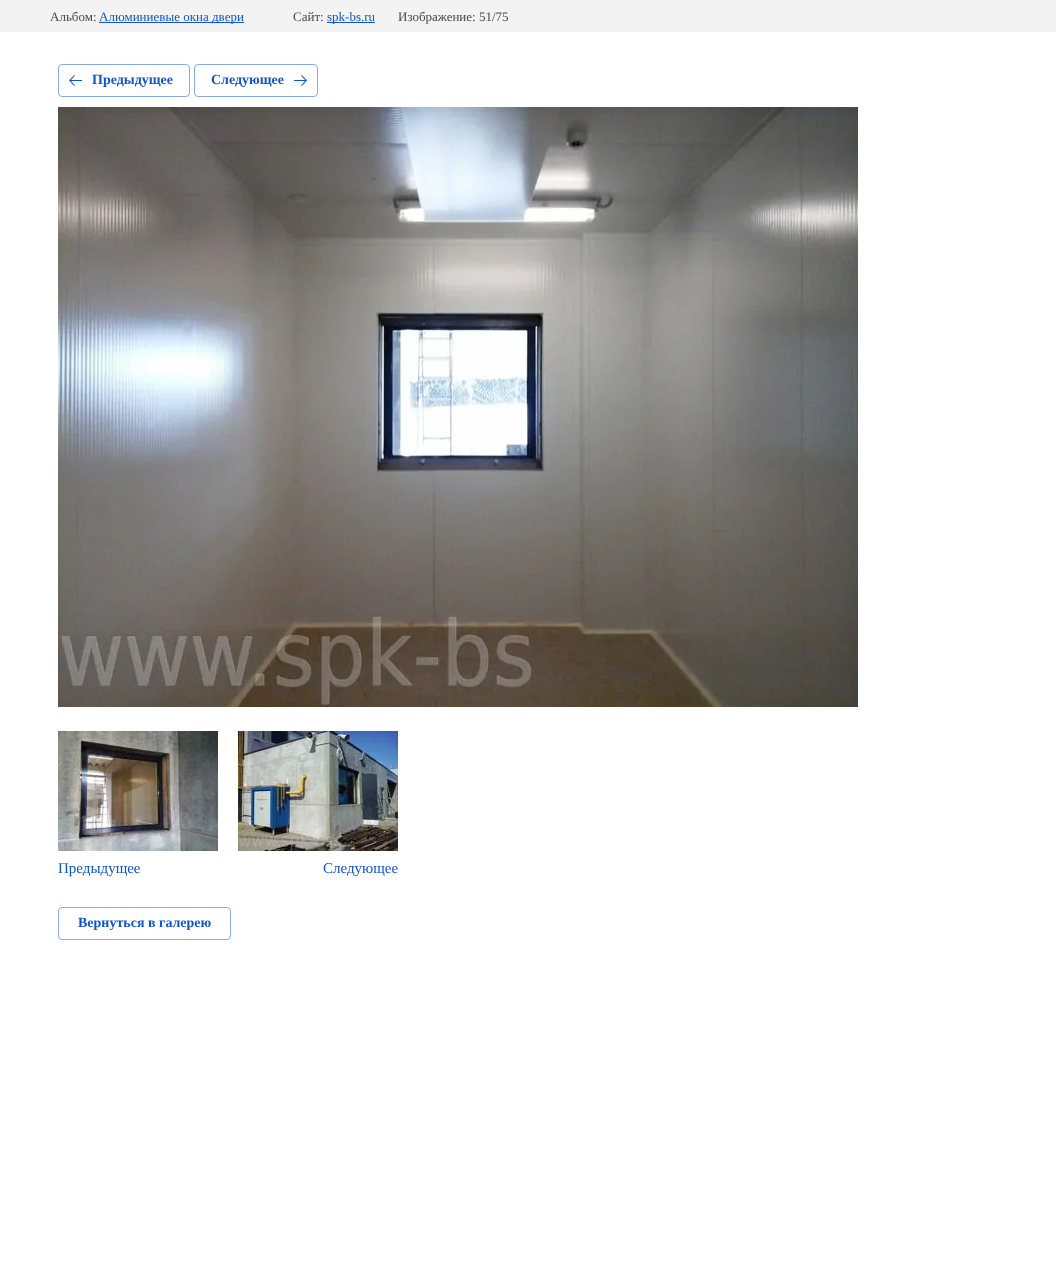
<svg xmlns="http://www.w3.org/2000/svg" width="1056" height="1281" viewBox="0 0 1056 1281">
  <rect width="100%" height="100%" fill="#fff"/>
  <path d="M0 0h1056v32H0z" fill="#f3f3f3"/>
  <path d="M99 22h145v1H99z" fill="#15c"/>
  <path d="M327 22h48v1H327z" fill="#15c"/>
  <rect x="58.5" y="64.5" width="131" height="32" rx="3.5" fill="none" stroke="#88aae6"/>
  <image x="69" y="75" width="13" height="11" href="img/1.png"/>
  <rect x="194.5" y="64.5" width="123" height="32" rx="3.5" fill="none" stroke="#88aae6"/>
  <image x="294" y="75" width="13" height="11" href="img/2.png"/>
  <image x="58" y="107" width="800" height="600" href="img/3.png"/>
  <image x="58" y="731" width="160" height="120" href="img/4.png"/>
  <image x="238" y="731" width="160" height="120" href="img/5.png"/>
  <rect x="58.5" y="907.5" width="172" height="32" rx="3.5" fill="none" stroke="#88aae6"/>
  <text x="50" y="21" font-family="Liberation Serif" font-size="13" fill="#484848">Альбом:</text>
  <text x="99" y="21" font-family="Liberation Serif" font-size="13" fill="#15c">Алюминиевые окна двери</text>
  <text x="293" y="21" font-family="Liberation Serif" font-size="13" fill="#484848">Сайт:</text>
  <text x="327" y="21" font-family="Liberation Serif" font-size="13" fill="#15c">spk-bs.ru</text>
  <text x="398" y="21" font-family="Liberation Serif" font-size="13" fill="#484848">Изображение: 51/75</text>
  <g font-family="Liberation Serif" font-size="14" font-weight="bold" fill="#15c">
    <text x="92" y="84">Предыдущее</text>
    <text x="211" y="84">Следующее</text>
  </g>
  <g font-family="Liberation Serif" font-size="15" fill="#15c">
    <text x="58" y="873">Предыдущее</text>
    <text x="323" y="873">Следующее</text>
  </g>
  <text x="78" y="927" font-family="Liberation Serif" font-size="14" font-weight="bold" fill="#15c">Вернуться в галерею</text>
</svg>
